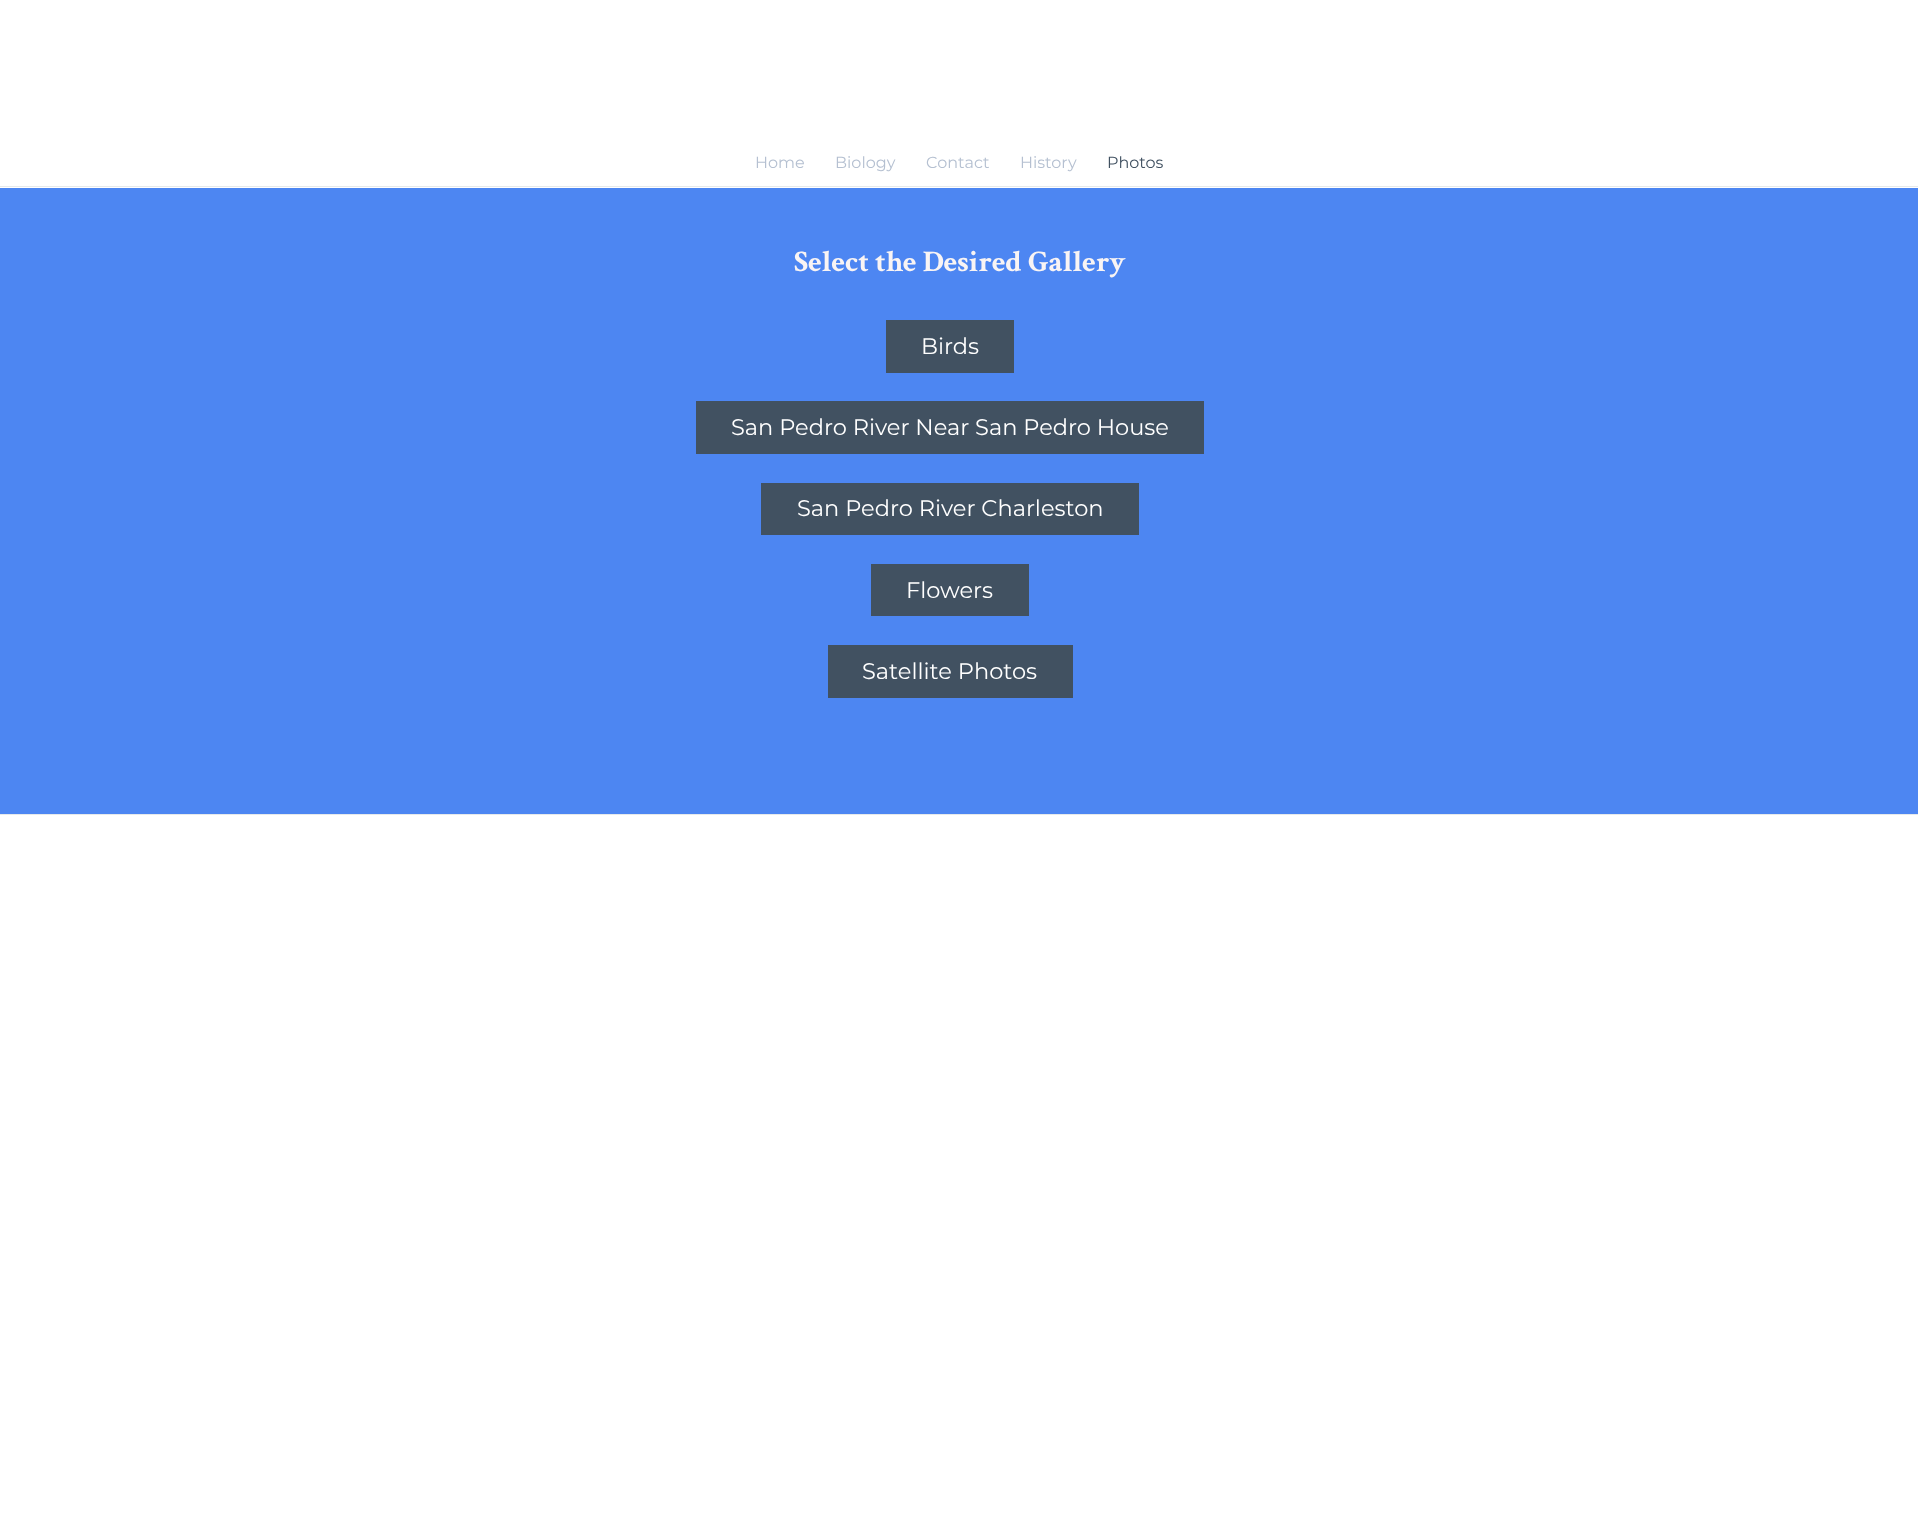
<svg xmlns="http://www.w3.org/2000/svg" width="1918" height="1526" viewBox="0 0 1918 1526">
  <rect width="100%" height="100%" fill="#fff"/>
  <path d="M0 186h1918v1H0z" fill="#e6e9eb"/>
  <path d="M0 188h1918v626H0z" fill="#4d86f2"/>
  <path d="M886 320h128v53H886z" fill="#415161"/>
  <path d="M696 401h508v53H696z" fill="#415161"/>
  <path d="M761 483h378v52H761z" fill="#415161"/>
  <path d="M871 564h158v52H871z" fill="#415161"/>
  <path d="M828 645h245v53H828z" fill="#415161"/>
  <path d="M0 814h1918v1H0z" fill="#e6e9eb"/>
  <g font-family="Montserrat" font-size="16" font-weight="100" fill="#b5c0d1">
    <text x="755" y="168">Home</text>
    <text x="835" y="168">Biology</text>
    <text x="926" y="168">Contact</text>
    <text x="1020" y="168">History</text>
  </g>
  <text x="1107" y="168" font-family="Montserrat" font-size="16" font-weight="100" fill="#415161">Photos</text>
  <text x="794" y="271" font-family="Crimson Text" font-size="30" font-weight="bold" fill="#f9f4f4">Select the Desired Gallery</text>
  <g font-family="Montserrat" font-size="22.5" font-weight="100" fill="#fff">
    <text x="921" y="354">Birds</text>
    <text x="731" y="435">San Pedro River Near San Pedro House</text>
    <text x="797" y="516">San Pedro River Charleston</text>
    <text x="906" y="598">Flowers</text>
    <text x="862" y="679">Satellite Photos</text>
  </g>
</svg>
